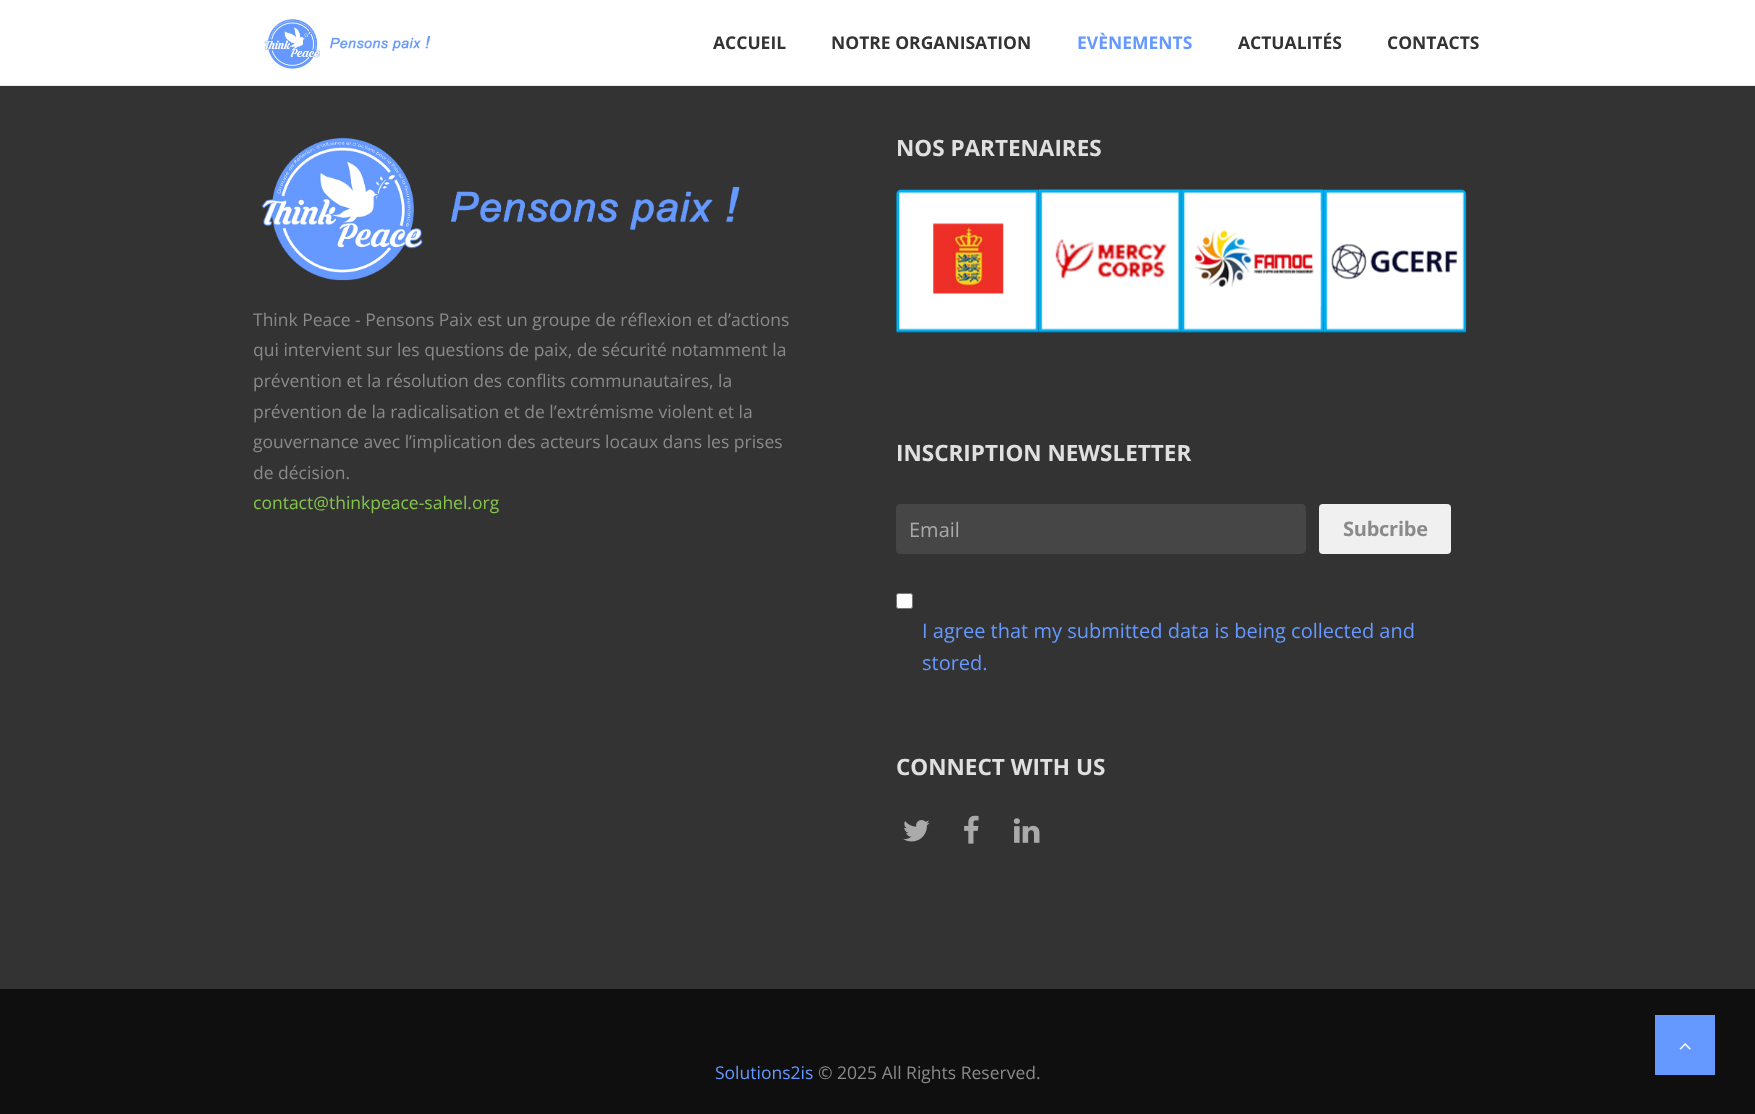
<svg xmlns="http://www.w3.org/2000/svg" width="1755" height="1114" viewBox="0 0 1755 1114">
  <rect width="100%" height="100%" fill="#333"/>
  <path d="M0 0h1755v85H0z" fill="#fff"/>
  <path d="M0 85h1755v1H0z" fill="#ecebe9"/>
  <image x="264" y="19" width="167" height="50" href="img/1.png"/>
  <image x="261" y="137" width="479" height="144" href="img/2.png"/>
  <image x="896" y="189" width="144" height="144" href="img/3.png"/>
  <image x="1038" y="189" width="144" height="144" href="img/4.png"/>
  <image x="1181" y="189" width="144" height="144" href="img/5.png"/>
  <image x="1323" y="189" width="144" height="144" href="img/6.png"/>
  <rect x="896" y="504" width="410" height="50" rx="5" fill="#464646"/>
  <path d="M901 504H1301C1304 504 1306 506 1306 509V549C1306 552 1304 554 1301 554H901C898 554 896 552 896 549V509C896 506 898 504 901 504ZM901 506H1301C1304 506 1306 507 1306 509V549C1306 552 1304 554 1301 554H901C900 554 899 552 899 549V509C899 507 900 506 901 506Z" fill="#464646" fill-rule="evenodd"/>
  <rect x="1319" y="504" width="132" height="50" rx="4" fill="#f0f0f0"/>
  <rect x="896.5" y="593.5" width="16" height="15" rx="2" fill="#fff" stroke="#767676"/>
  <image x="903" y="820" width="27" height="22" href="img/7.png"/>
  <image x="964" y="815" width="15" height="29" href="img/8.png"/>
  <image x="1013" y="818" width="27" height="25" href="img/9.png"/>
  <path d="M0 989h1755v125H0z" fill="#0f0f0f"/>
  <path d="M1655 1015h60v60H1655z" fill="#6599ff"/>
  <image x="1679" y="1043" width="12" height="7" href="img/10.png"/>
  <g font-family="Open Sans" font-size="17.5" font-weight="bold" fill="#333">
    <text x="713" y="49">ACCUEIL</text>
    <text x="831" y="49">NOTRE ORGANISATION</text>
  </g>
  <text x="1077" y="49" font-family="Open Sans" font-size="17.5" font-weight="bold" fill="#6599ff">EVÈNEMENTS</text>
  <g font-family="Open Sans" font-size="17.5" font-weight="bold" fill="#333">
    <text x="1238" y="49">ACTUALITÉS</text>
    <text x="1387" y="49">CONTACTS</text>
  </g>
  <g font-family="Open Sans" font-size="17.5" fill="#8a8a8a">
    <text x="253" y="326">Think Peace - Pensons Paix est un groupe de réflexion et d’actions</text>
    <text x="253" y="356">qui intervient sur les questions de paix, de sécurité notamment la</text>
    <text x="253" y="387">prévention et la résolution des conflits communautaires, la</text>
    <text x="253" y="418">prévention de la radicalisation et de l’extrémisme violent et la</text>
    <text x="253" y="448">gouvernance avec l’implication des acteurs locaux dans les prises</text>
    <text x="253" y="479">de décision.</text>
  </g>
  <text x="253" y="509" font-family="Open Sans" font-size="17.5" fill="#84c54e">contact@thinkpeace-sahel.org</text>
  <g font-family="Open Sans" font-size="22.5" font-weight="bold" fill="#e0e0e0">
    <text x="896" y="156">NOS PARTENAIRES</text>
    <text x="896" y="461">INSCRIPTION NEWSLETTER</text>
  </g>
  <text x="909" y="537" font-family="Open Sans" font-size="20" fill="#aaa">Email</text>
  <text x="1343" y="536" font-family="Open Sans" font-size="20" font-weight="bold" letter-spacing="-0.25" fill="#8a8a8a">Subcribe</text>
  <g font-family="Open Sans" font-size="20" fill="#6599ff">
    <text x="922" y="638">I agree that my submitted data is being collected and</text>
    <text x="922" y="670">stored.</text>
  </g>
  <text x="896" y="775" font-family="Open Sans" font-size="22.5" font-weight="bold" fill="#e0e0e0">CONNECT WITH US</text>
  <text x="715" y="1079" font-family="Open Sans" font-size="17.5" fill="#6599ff">Solutions2is</text>
  <text x="818" y="1079" font-family="Open Sans" font-size="17.5" fill="#8a8a8a">© 2025 All Rights Reserved.</text>
</svg>
